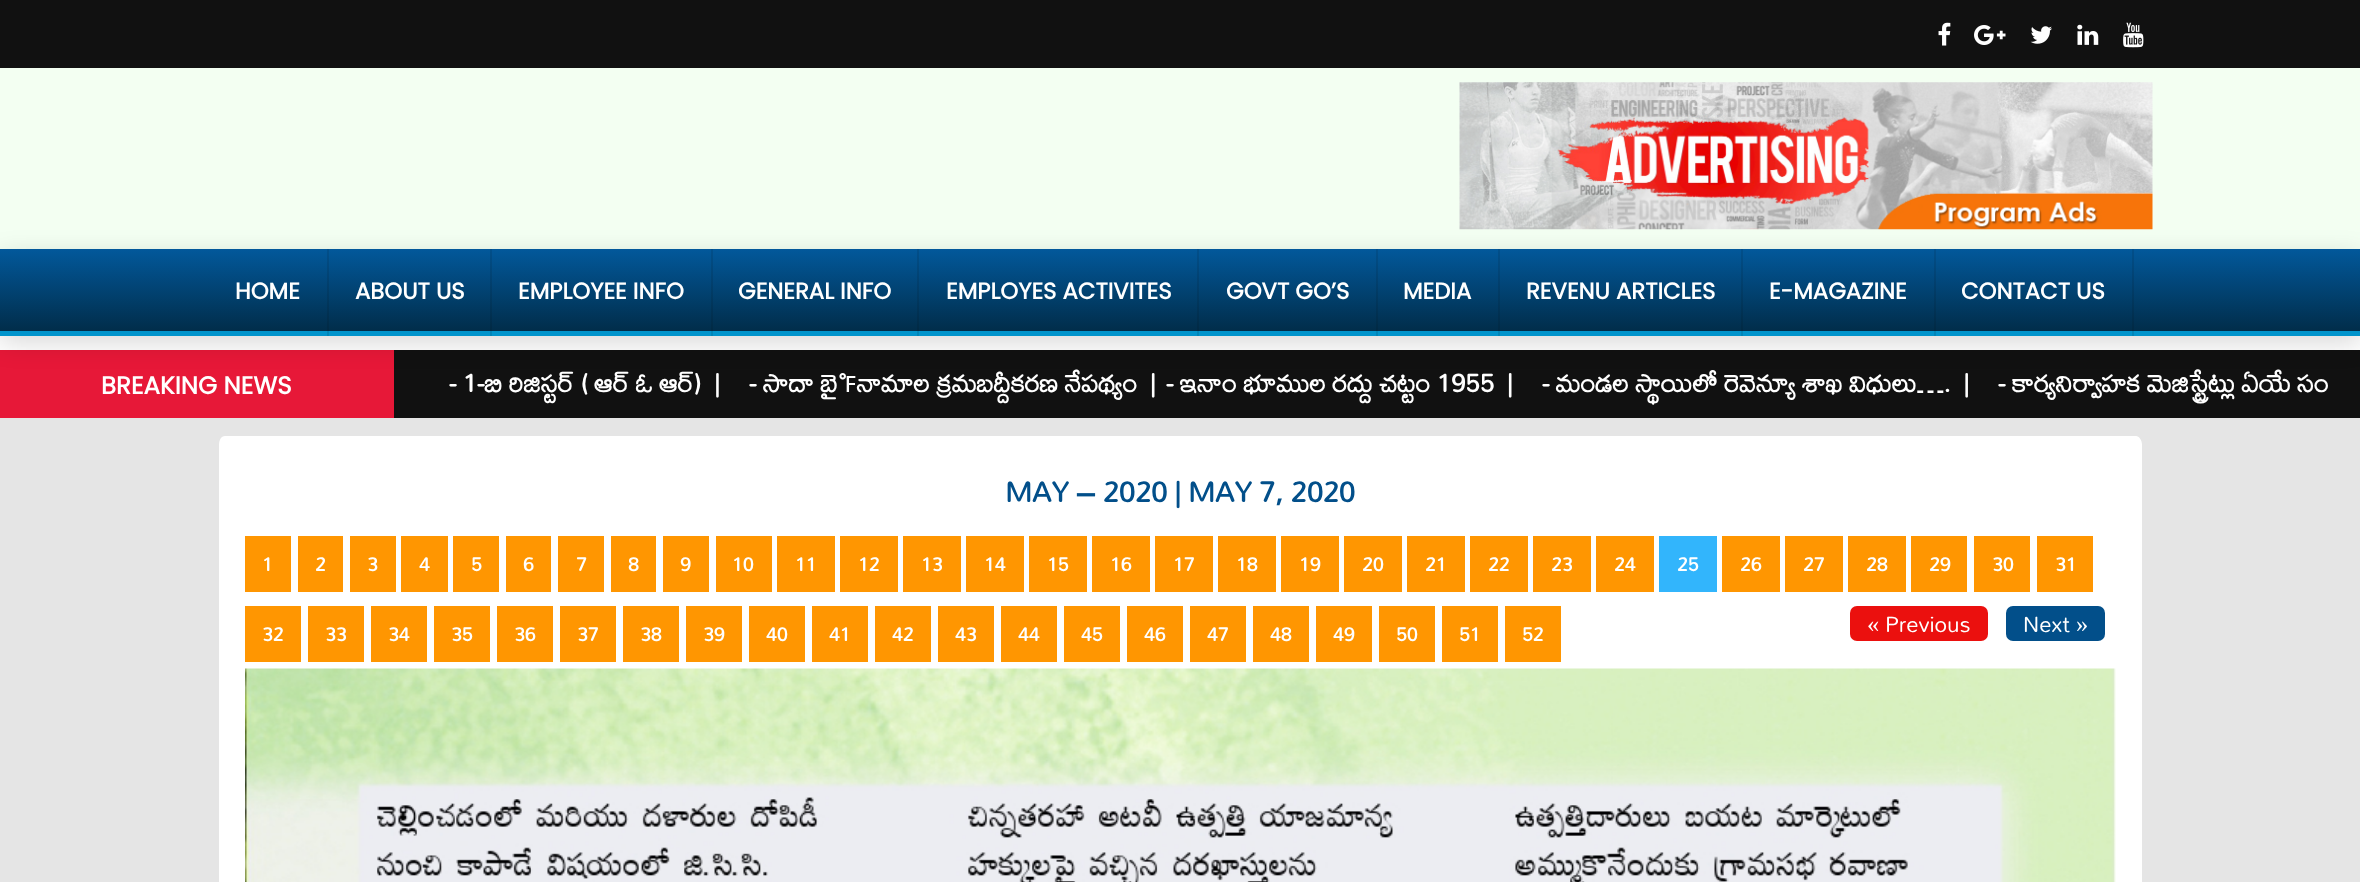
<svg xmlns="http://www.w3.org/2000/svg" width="2360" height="882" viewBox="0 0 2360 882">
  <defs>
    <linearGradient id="g1" gradientUnits="userSpaceOnUse" x1="1180" y1="248" x2="1180" y2="331"><stop offset="0" stop-color="#02599c"/><stop offset="1" stop-color="#012d4a"/></linearGradient>
    <linearGradient id="g2" gradientUnits="userSpaceOnUse" x1="1180" y1="248" x2="1180" y2="331"><stop offset="0" stop-color="#02508c"/><stop offset="1" stop-color="#012943"/></linearGradient>
  </defs>
  <rect width="100%" height="100%" fill="#fff"/>
  <path d="M0 0h2360v68H0z" fill="#111"/>
  <image x="1938" y="22" width="13" height="24" href="img/1.png"/>
  <image x="1974" y="25" width="32" height="20" href="img/2.png"/>
  <image x="2030" y="26" width="22" height="18" href="img/3.png"/>
  <image x="2077" y="24" width="22" height="21" href="img/4.png"/>
  <image x="2123" y="22" width="21" height="26" href="img/5.png"/>
  <path d="M0 68h2360v181H0z" fill="#f3fff2"/>
  <image x="1459" y="82" width="694" height="148" href="img/6.png"/>
  <path d="M394 350h1966v68H394z" fill="#111"/>
  <path d="M0 350h394v68H0z" fill="#e71838"/>
  <path d="M0 256h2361v87H0z" fill="#00000026" filter="blur(13px)"/>
  <path d="M0 249h2360v82H0z" fill="url(#g1)"/>
  <path d="M2132 249h2v82H2132z" fill="url(#g2)"/>
  <path d="M1934 249h2v82H1934z" fill="url(#g2)"/>
  <path d="M1741 249h2v82H1741z" fill="url(#g2)"/>
  <path d="M1498 249h2v82H1498z" fill="url(#g2)"/>
  <path d="M1376 249h2v82H1376z" fill="url(#g2)"/>
  <path d="M1197 249h2v82H1197z" fill="url(#g2)"/>
  <path d="M917 249h2v82H917z" fill="url(#g2)"/>
  <path d="M711 249h2v82H711z" fill="url(#g2)"/>
  <path d="M490 249h2v82H490z" fill="url(#g2)"/>
  <path d="M327 249h2v82H327z" fill="url(#g2)"/>
  <path d="M0 331h2360v5H0z" fill="#0094cc"/>
  <path d="M2132 331h2v5H2132z" fill="#0085b8"/>
  <path d="M1934 331h2v5H1934z" fill="#0085b8"/>
  <path d="M1741 331h2v5H1741z" fill="#0085b8"/>
  <path d="M1498 331h2v5H1498z" fill="#0085b8"/>
  <path d="M1376 331h2v5H1376z" fill="#0085b8"/>
  <path d="M1197 331h2v5H1197z" fill="#0085b8"/>
  <path d="M917 331h2v5H917z" fill="#0085b8"/>
  <path d="M711 331h2v5H711z" fill="#0085b8"/>
  <path d="M490 331h2v5H490z" fill="#0085b8"/>
  <path d="M327 331h2v5H327z" fill="#0085b8"/>
  <path d="M0 418h2360v464H0z" fill="#e5e5e5"/>
  <path d="M225 436H2136C2139 436 2142 440 2142 445V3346C2142 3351 2139 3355 2136 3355H225C221 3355 219 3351 219 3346V445C219 440 221 436 225 436Z" fill="#fff"/>
  <path d="M245 536h46v56H245z" fill="#ff9601"/>
  <path d="M298 536h45v56H298z" fill="#ff9601"/>
  <path d="M350 536h46v56H350z" fill="#ff9601"/>
  <path d="M401 536h47v56H401z" fill="#ff9601"/>
  <path d="M453 536h46v56H453z" fill="#ff9601"/>
  <path d="M506 536h45v56H506z" fill="#ff9601"/>
  <path d="M558 536h46v56H558z" fill="#ff9601"/>
  <path d="M611 536h45v56H611z" fill="#ff9601"/>
  <path d="M663 536h46v56H663z" fill="#ff9601"/>
  <path d="M716 536h56v56H716z" fill="#ff9601"/>
  <path d="M777 536h58v56H777z" fill="#ff9601"/>
  <path d="M840 536h58v56H840z" fill="#ff9601"/>
  <path d="M903 536h58v56H903z" fill="#ff9601"/>
  <path d="M966 536h58v56H966z" fill="#ff9601"/>
  <path d="M1029 536h58v56H1029z" fill="#ff9601"/>
  <path d="M1092 536h58v56H1092z" fill="#ff9601"/>
  <path d="M1155 536h58v56H1155z" fill="#ff9601"/>
  <path d="M1218 536h58v56H1218z" fill="#ff9601"/>
  <path d="M1281 536h58v56H1281z" fill="#ff9601"/>
  <path d="M1344 536h58v56H1344z" fill="#ff9601"/>
  <path d="M1407 536h58v56H1407z" fill="#ff9601"/>
  <path d="M1470 536h58v56H1470z" fill="#ff9601"/>
  <path d="M1533 536h58v56H1533z" fill="#ff9601"/>
  <path d="M1596 536h58v56H1596z" fill="#ff9601"/>
  <path d="M1659 536h58v56H1659z" fill="#32b5fc"/>
  <path d="M1722 536h58v56H1722z" fill="#ff9601"/>
  <path d="M1785 536h58v56H1785z" fill="#ff9601"/>
  <path d="M1848 536h58v56H1848z" fill="#ff9601"/>
  <path d="M1911 536h56v56H1911z" fill="#ff9601"/>
  <path d="M1974 536h56v56H1974z" fill="#ff9601"/>
  <path d="M2037 536h56v56H2037z" fill="#ff9601"/>
  <rect x="1850" y="606" width="138" height="35" rx="7" fill="#eb100e"/>
  <rect x="2006" y="606" width="99" height="35" rx="7" fill="#024f8a"/>
  <path d="M245 606h56v56H245z" fill="#ff9601"/>
  <path d="M308 606h56v56H308z" fill="#ff9601"/>
  <path d="M371 606h56v56H371z" fill="#ff9601"/>
  <path d="M434 606h56v56H434z" fill="#ff9601"/>
  <path d="M497 606h56v56H497z" fill="#ff9601"/>
  <path d="M560 606h56v56H560z" fill="#ff9601"/>
  <path d="M623 606h56v56H623z" fill="#ff9601"/>
  <path d="M686 606h56v56H686z" fill="#ff9601"/>
  <path d="M749 606h56v56H749z" fill="#ff9601"/>
  <path d="M812 606h56v56H812z" fill="#ff9601"/>
  <path d="M875 606h56v56H875z" fill="#ff9601"/>
  <path d="M938 606h56v56H938z" fill="#ff9601"/>
  <path d="M1001 606h56v56H1001z" fill="#ff9601"/>
  <path d="M1064 606h56v56H1064z" fill="#ff9601"/>
  <path d="M1127 606h56v56H1127z" fill="#ff9601"/>
  <path d="M1190 606h56v56H1190z" fill="#ff9601"/>
  <path d="M1253 606h56v56H1253z" fill="#ff9601"/>
  <path d="M1316 606h56v56H1316z" fill="#ff9601"/>
  <path d="M1379 606h56v56H1379z" fill="#ff9601"/>
  <path d="M1442 606h56v56H1442z" fill="#ff9601"/>
  <path d="M1505 606h56v56H1505z" fill="#ff9601"/>
  <image x="245" y="668" width="1871" height="214" href="img/7.png"/>
  <g font-family="Poppins" font-size="22.75" font-weight="bold" fill="#fff">
    <text x="235" y="299">HOME</text>
    <text x="355" y="299">ABOUT US</text>
    <text x="518" y="299">EMPLOYEE INFO</text>
    <text x="738" y="299">GENERAL INFO</text>
    <text x="946" y="299">EMPLOYES ACTIVITES</text>
    <text x="1226" y="299">GOVT GO’S</text>
    <text x="1403" y="299">MEDIA</text>
    <text x="1526" y="299">REVENU ARTICLES</text>
    <text x="1769" y="299">E-MAGAZINE</text>
    <text x="1961" y="299">CONTACT US</text>
  </g>
  <text x="101" y="394" font-family="Poppins" font-size="24.5" font-weight="bold" fill="#fff">BREAKING NEWS</text>
  <g font-family="Mallanna" font-size="28" font-weight="bold" fill="#fff">
    <text x="449" y="392" xml:space="preserve">- 1-బి రిజిస్ట‌ర్ ( ఆర్ ఓ ఆర్)  |</text>
    <text x="749" y="392" xml:space="preserve">- సాదా బైనామాల క్ర‌మ‌బ‌ద్దీక‌ర‌ణ‌ నేప‌థ్యం  |</text>
    <text x="1166" y="392" xml:space="preserve">- ఇనాం భూముల ర‌ద్దు చ‌ట్టం 1955  |</text>
    <text x="1542" y="392" xml:space="preserve">- మండల స్థాయిలో రెవెన్యూ శాఖ విధులు….  |</text>
    <text x="1998" y="392">- కార్యనిర్వాహక మెజిస్ట్రేట్లు ఏయే సం</text>
  </g>
  <text x="1005" y="502" font-family="Mallanna" font-size="31.5" font-weight="bold" fill="#024f8a">MAY – 2020 | MAY 7, 2020</text>
  <g font-family="Mallanna" font-size="21" font-weight="bold" fill="#fff">
    <text x="262" y="571">1</text>
    <text x="315" y="571">2</text>
    <text x="367" y="571">3</text>
    <text x="419" y="571">4</text>
    <text x="471" y="571">5</text>
    <text x="523" y="571">6</text>
    <text x="576" y="571">7</text>
    <text x="628" y="571">8</text>
    <text x="680" y="571">9</text>
    <text x="732" y="571">10</text>
    <text x="795" y="571">11</text>
    <text x="858" y="571">12</text>
    <text x="921" y="571">13</text>
    <text x="984" y="571">14</text>
    <text x="1047" y="571">15</text>
    <text x="1110" y="571">16</text>
    <text x="1173" y="571">17</text>
    <text x="1236" y="571">18</text>
    <text x="1299" y="571">19</text>
    <text x="1362" y="571">20</text>
    <text x="1425" y="571">21</text>
    <text x="1488" y="571">22</text>
    <text x="1551" y="571">23</text>
    <text x="1614" y="571">24</text>
    <text x="1677" y="571">25</text>
    <text x="1740" y="571">26</text>
    <text x="1803" y="571">27</text>
    <text x="1866" y="571">28</text>
    <text x="1929" y="571">29</text>
    <text x="1992" y="571">30</text>
    <text x="2055" y="571">31</text>
  </g>
  <text x="1867" y="632" font-family="Liberation Serif" font-size="24.5" fill="#fff">«</text>
  <g font-family="Mallanna" font-size="24.5" fill="#fff">
    <text x="1885" y="632">Previous</text>
    <text x="2023" y="632">Next</text>
  </g>
  <text x="2076" y="632" font-family="Liberation Serif" font-size="24.5" fill="#fff">»</text>
  <g font-family="Mallanna" font-size="21" font-weight="bold" fill="#fff">
    <text x="262" y="641">32</text>
    <text x="325" y="641">33</text>
    <text x="388" y="641">34</text>
    <text x="451" y="641">35</text>
    <text x="514" y="641">36</text>
    <text x="577" y="641">37</text>
    <text x="640" y="641">38</text>
    <text x="703" y="641">39</text>
    <text x="766" y="641">40</text>
    <text x="829" y="641">41</text>
    <text x="892" y="641">42</text>
    <text x="955" y="641">43</text>
    <text x="1018" y="641">44</text>
    <text x="1081" y="641">45</text>
    <text x="1144" y="641">46</text>
    <text x="1207" y="641">47</text>
    <text x="1270" y="641">48</text>
    <text x="1333" y="641">49</text>
    <text x="1396" y="641">50</text>
    <text x="1459" y="641">51</text>
    <text x="1522" y="641">52</text>
  </g>
</svg>
